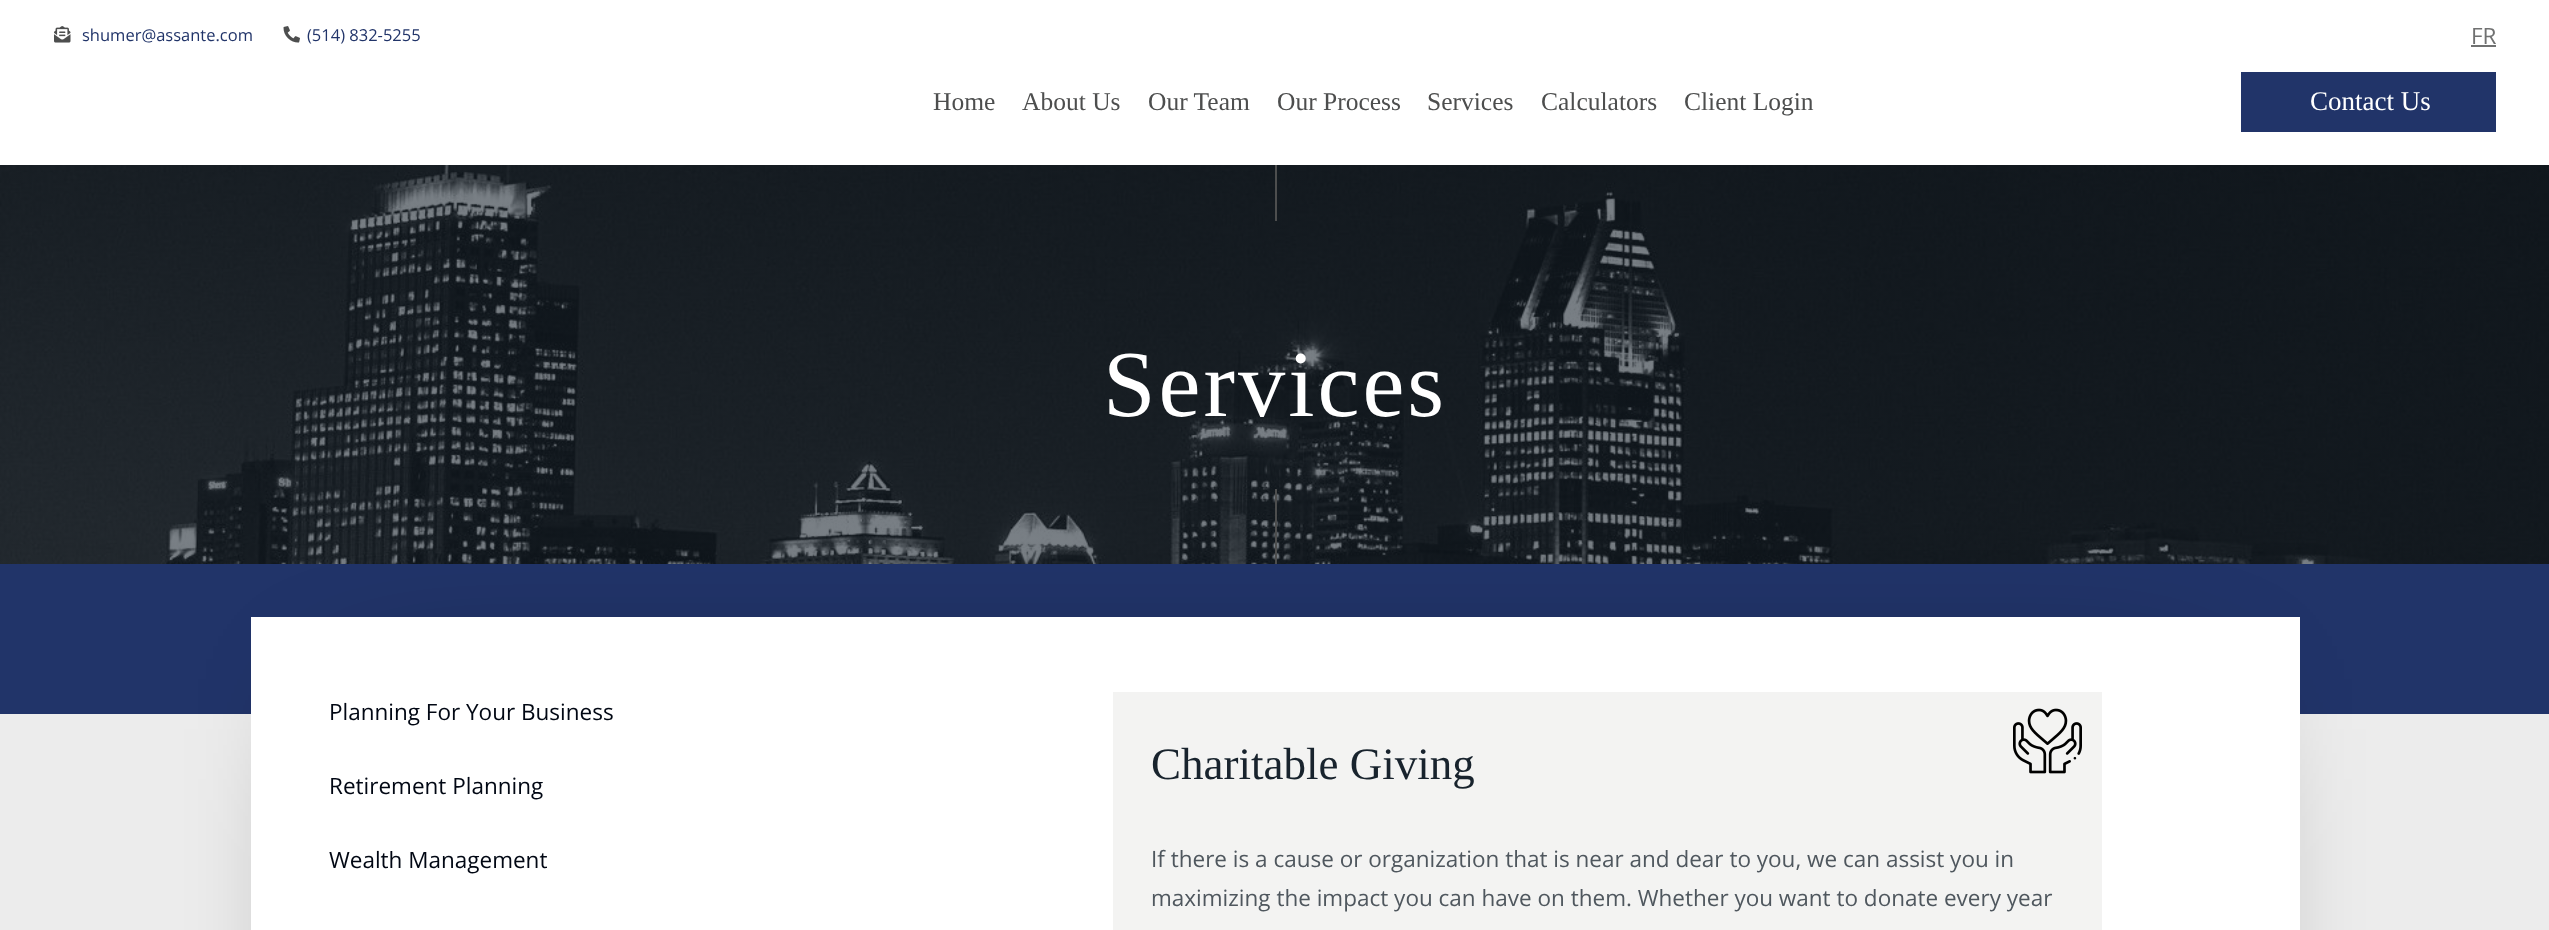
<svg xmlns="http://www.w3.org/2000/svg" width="2549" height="930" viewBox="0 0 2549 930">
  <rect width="100%" height="100%" fill="#ececec"/>
  <path d="M0 0h2549v165H0z" fill="#fff"/>
  <image x="54" y="26" width="17" height="17" href="img/1.png"/>
  <image x="283" y="26" width="17" height="17" href="img/2.png"/>
  <path d="M2471 45h25v2H2471z" fill="#707171"/>
  <path d="M2241 72h255v60H2241z" fill="#213469"/>
  <image x="0" y="165" width="2549" height="399" href="img/3.png"/>
  <path d="M1275 165h2v56H1275z" fill="#4d4e4e"/>
  <path d="M1275 489h2v75H1275z" fill="#4d4e4e"/>
  <path d="M0 564h2549v150H0z" fill="#213469"/>
  <path d="M363 729h1824v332H363z" fill="#000" filter="blur(75px)"/>
  <path d="M251 617h2049v313H251z" fill="#fff"/>
  <path d="M1113 692h989v238H1113z" fill="#f3f3f2"/>
  <image x="2013" y="708" width="69" height="66" href="img/4.png"/>
  <g font-family="Open Sans" font-size="16.5" fill="#213469">
    <text x="82" y="41">shumer@assante.com</text>
    <text x="307" y="41">(514) 832-5255</text>
  </g>
  <text x="2471" y="44" font-family="Open Sans" font-size="22.5" fill="#707171">FR</text>
  <g font-family="Liberation Serif" font-size="25.5" fill="#4d4e4e">
    <text x="933" y="110">Home</text>
    <text x="1022" y="110">About Us</text>
    <text x="1148" y="110">Our Team</text>
    <text x="1277" y="110">Our Process</text>
    <text x="1427" y="110">Services</text>
    <text x="1541" y="110">Calculators</text>
    <text x="1684" y="110">Client Login</text>
  </g>
  <text x="2310" y="110" font-family="Liberation Serif" font-size="27" fill="#fff">Contact Us</text>
  <text x="1103" y="416" font-family="Liberation Serif" font-size="94.5" letter-spacing="3" fill="#fff">Services</text>
  <g font-family="Open Sans" font-size="22.5" fill="#010713">
    <text x="329" y="720">Planning For Your Business</text>
    <text x="329" y="794">Retirement Planning</text>
    <text x="329" y="868">Wealth Management</text>
  </g>
  <text x="1151" y="779" font-family="Liberation Serif" font-size="45" fill="#18232d">Charitable Giving</text>
  <g font-family="Open Sans" font-size="22.5" fill="#4f575e">
    <text x="1151" y="867">If there is a cause or organization that is near and dear to you, we can assist you in</text>
    <text x="1151" y="906">maximizing the impact you can have on them. Whether you want to donate every year</text>
  </g>
</svg>
